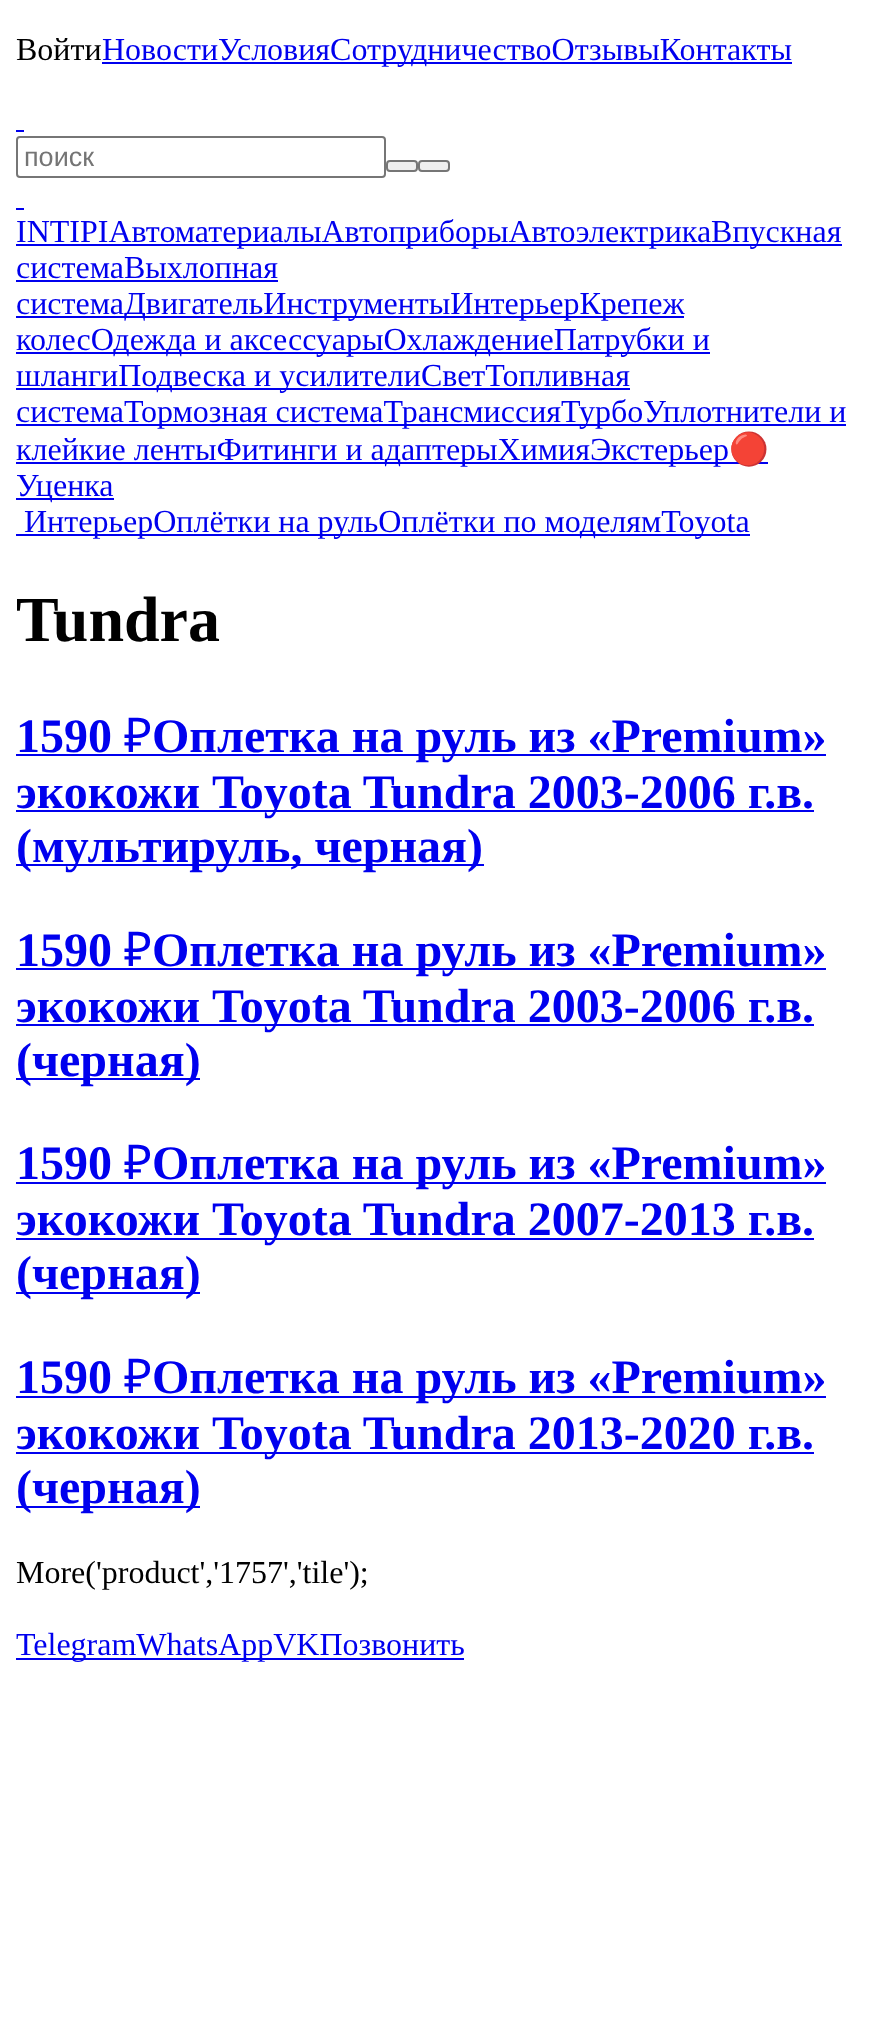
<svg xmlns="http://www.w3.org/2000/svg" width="881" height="2022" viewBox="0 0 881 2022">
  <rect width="100%" height="100%" fill="#fff"/>
  <path d="M102 62h690v2H102z" fill="#00e"/>
  <path d="M16 130h8v2H16z" fill="#00e"/>
  <rect x="17" y="137" width="368" height="40" rx="3" fill="none" stroke="#767676" stroke-width="2"/>
  <rect x="387" y="161" width="30" height="10" rx="3" fill="#efefef" stroke="#767676" stroke-width="2"/>
  <rect x="419" y="161" width="30" height="10" rx="3" fill="#efefef" stroke="#767676" stroke-width="2"/>
  <path d="M16 208h8v2H16z" fill="#00e"/>
  <path d="M16 244h826v2H16z" fill="#00e"/>
  <path d="M16 280h262v2H16z" fill="#00e"/>
  <path d="M16 316h668v2H16z" fill="#00e"/>
  <path d="M16 352h694v2H16z" fill="#00e"/>
  <path d="M16 388h404v2H16z" fill="#00e"/>
  <path d="M420 388h210v2H420z" fill="#00e"/>
  <path d="M16 424h830v2H16z" fill="#00e"/>
  <path d="M16 462h752v2H16z" fill="#00e"/>
  <path d="M16 498h98v2H16z" fill="#00e"/>
  <path d="M16 534h734v2H16z" fill="#00e"/>
  <path d="M16 754h810v2H16z" fill="#00e"/>
  <path d="M16 810h798v2H16z" fill="#00e"/>
  <path d="M16 864h468v2H16z" fill="#00e"/>
  <path d="M16 968h810v2H16z" fill="#00e"/>
  <path d="M16 1024h798v2H16z" fill="#00e"/>
  <path d="M16 1078h184v2H16z" fill="#00e"/>
  <path d="M16 1182h810v2H16z" fill="#00e"/>
  <path d="M16 1238h798v2H16z" fill="#00e"/>
  <path d="M16 1292h184v2H16z" fill="#00e"/>
  <path d="M16 1396h810v2H16z" fill="#00e"/>
  <path d="M16 1452h798v2H16z" fill="#00e"/>
  <path d="M16 1506h184v2H16z" fill="#00e"/>
  <path d="M16 1658h448v2H16z" fill="#00e"/>
  <text x="16" y="60" font-family="Liberation Serif" font-size="32" fill="#000">Войти</text>
  <text x="102" y="60" font-family="Liberation Serif" font-size="32" fill="#00e">НовостиУсловияСотрудничествоОтзывыКонтакты</text>
  <text x="24" y="166" font-family="Liberation Sans" font-size="27" fill="#757575">поиск</text>
  <g font-family="Liberation Serif" font-size="32" fill="#00e">
    <text x="16" y="242">INTIPIАвтоматериалыАвтоприборыАвтоэлектрикаВпускная</text>
    <text x="16" y="278">системаВыхлопная</text>
    <text x="16" y="314">системаДвигательИнструментыИнтерьерКрепеж</text>
    <text x="16" y="350">колесОдежда и аксессуарыОхлаждениеПатрубки и</text>
    <text x="16" y="386">шлангиПодвеска и усилителиСветТопливная</text>
    <text x="16" y="422">системаТормозная системаТрансмиссияТурбоУплотнители и</text>
    <text x="16" y="460">клейкие лентыФитинги и адаптерыХимияЭкстерьер</text>
  </g>
  <text x="729" y="460" font-family="Noto Color Emoji" font-size="32" fill="#00e">🔴</text>
  <g font-family="Liberation Serif" font-size="32" fill="#00e">
    <text x="16" y="496">Уценка</text>
    <text x="24" y="532">ИнтерьерОплётки на рульОплётки по моделямToyota</text>
  </g>
  <text x="16" y="641" font-family="Liberation Serif" font-size="64" font-weight="bold" fill="#000">Tundra</text>
  <text x="16" y="752" font-family="Liberation Serif" font-size="48" font-weight="bold" fill="#00e">1590</text>
  <text x="124" y="752" font-family="Noto Sans" font-size="48" fill="#00e">₽</text>
  <g font-family="Liberation Serif" font-size="48" font-weight="bold" fill="#00e">
    <text x="152" y="752">Оплетка на руль из «Premium»</text>
    <text x="16" y="808">экокожи Toyota Tundra 2003-2006 г.в.</text>
    <text x="16" y="862">(мультируль, черная)</text>
    <text x="16" y="966">1590</text>
  </g>
  <text x="124" y="966" font-family="Noto Sans" font-size="48" fill="#00e">₽</text>
  <g font-family="Liberation Serif" font-size="48" font-weight="bold" fill="#00e">
    <text x="152" y="966">Оплетка на руль из «Premium»</text>
    <text x="16" y="1022">экокожи Toyota Tundra 2003-2006 г.в.</text>
    <text x="16" y="1076">(черная)</text>
    <text x="16" y="1179">1590</text>
  </g>
  <text x="124" y="1179" font-family="Noto Sans" font-size="48" fill="#00e">₽</text>
  <g font-family="Liberation Serif" font-size="48" font-weight="bold" fill="#00e">
    <text x="152" y="1179">Оплетка на руль из «Premium»</text>
    <text x="16" y="1235">экокожи Toyota Tundra 2007-2013 г.в.</text>
    <text x="16" y="1289">(черная)</text>
    <text x="16" y="1393">1590</text>
  </g>
  <text x="124" y="1393" font-family="Noto Sans" font-size="48" fill="#00e">₽</text>
  <g font-family="Liberation Serif" font-size="48" font-weight="bold" fill="#00e">
    <text x="152" y="1393">Оплетка на руль из «Premium»</text>
    <text x="16" y="1449">экокожи Toyota Tundra 2013-2020 г.в.</text>
    <text x="16" y="1503">(черная)</text>
  </g>
  <text x="16" y="1583" font-family="Liberation Serif" font-size="32" fill="#000">More('product','1757','tile');</text>
  <text x="16" y="1655" font-family="Liberation Serif" font-size="32" fill="#00e">TelegramWhatsAppVKПозвонить</text>
</svg>
